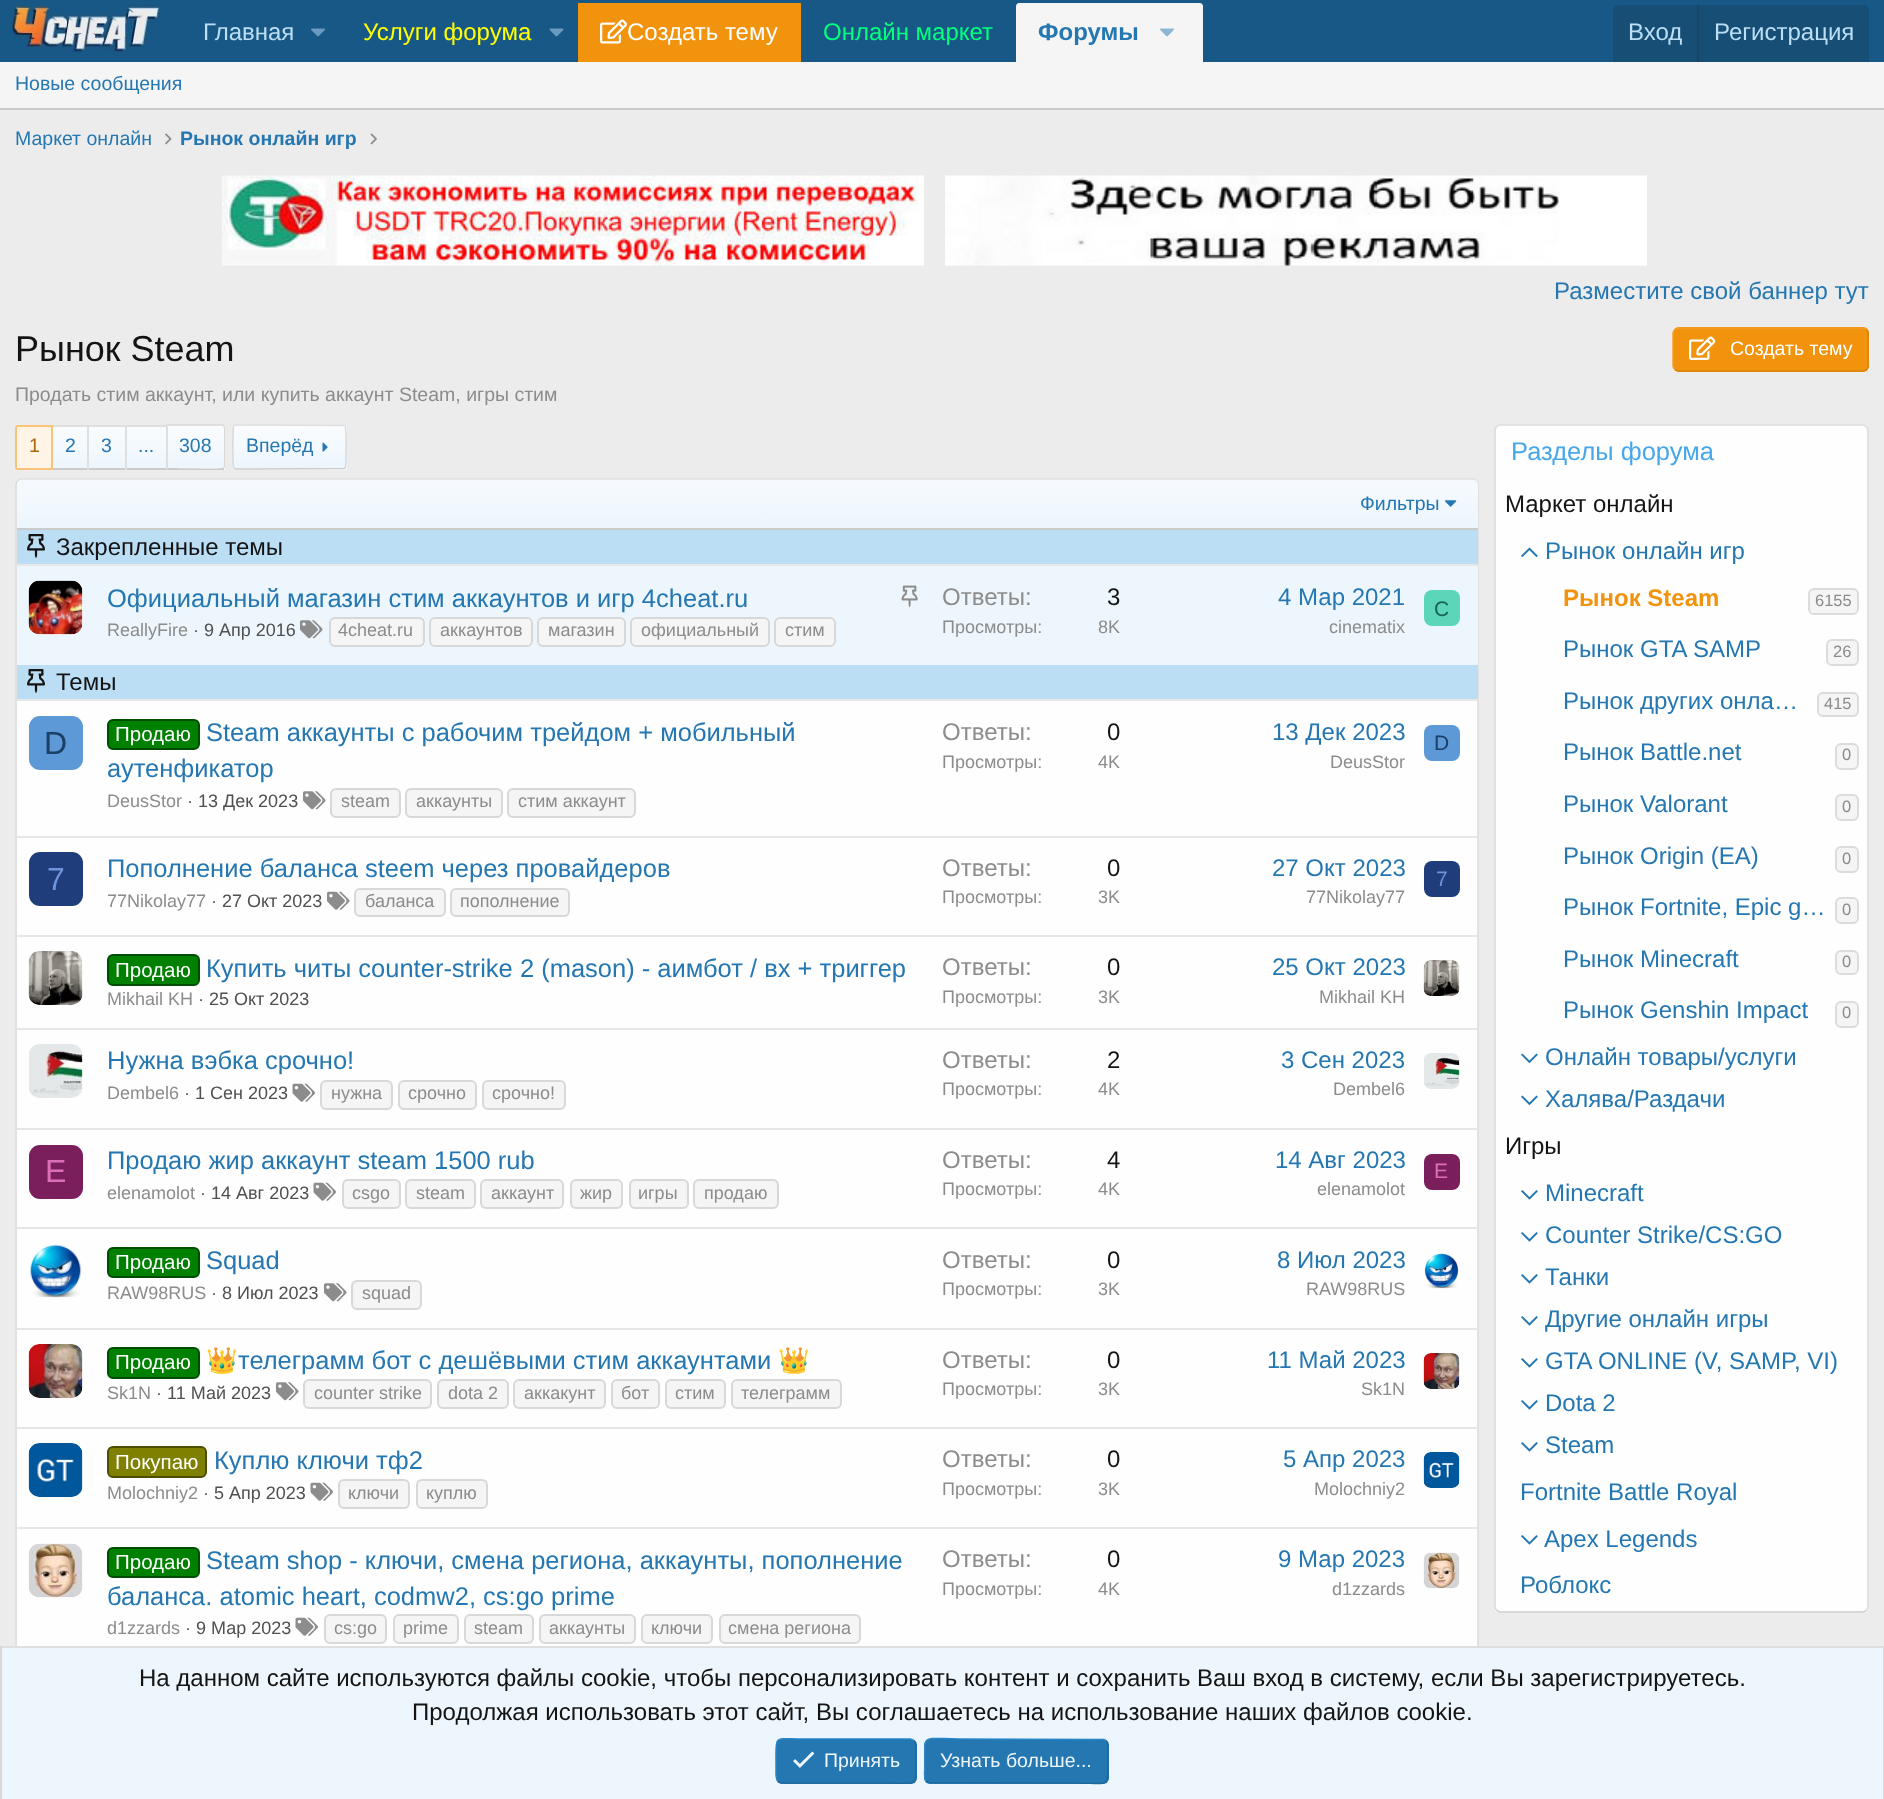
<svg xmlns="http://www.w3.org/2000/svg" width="1884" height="1799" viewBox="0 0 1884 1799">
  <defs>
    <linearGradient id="g1" gradientUnits="userSpaceOnUse" x1="70" y1="468" x2="70" y2="426"><stop offset="0" stop-color="#edf6fd"/><stop offset="1" stop-color="#fafcfe"/></linearGradient>
    <linearGradient id="g2" gradientUnits="userSpaceOnUse" x1="107" y1="468" x2="107" y2="426"><stop offset="0" stop-color="#edf6fd"/><stop offset="1" stop-color="#fafcfe"/></linearGradient>
    <linearGradient id="g3" gradientUnits="userSpaceOnUse" x1="146" y1="468" x2="146" y2="426"><stop offset="0" stop-color="#edf6fd"/><stop offset="1" stop-color="#fafcfe"/></linearGradient>
    <clipPath id="clip1"><path d="M167 425H222C223.5 425 225 426.5 225 428V467C225 468.5 223.5 470 222 470H167Z"/></clipPath>
    <linearGradient id="g4" gradientUnits="userSpaceOnUse" x1="196" y1="468" x2="196" y2="426"><stop offset="0" stop-color="#edf6fd"/><stop offset="1" stop-color="#fafcfe"/></linearGradient>
    <linearGradient id="g5" gradientUnits="userSpaceOnUse" x1="196" y1="510" x2="196" y2="468"><stop offset="0" stop-color="#edf6fd"/><stop offset="1" stop-color="#fafcfe"/></linearGradient>
    <clipPath id="clip2"><rect x="233" y="425" width="114" height="45" rx="3"/></clipPath>
    <linearGradient id="g6" gradientUnits="userSpaceOnUse" x1="290" y1="426" x2="290" y2="384"><stop offset="0" stop-color="#edf6fd"/><stop offset="1" stop-color="#fafcfe"/></linearGradient>
    <linearGradient id="g7" gradientUnits="userSpaceOnUse" x1="290" y1="468" x2="290" y2="426"><stop offset="0" stop-color="#edf6fd"/><stop offset="1" stop-color="#fafcfe"/></linearGradient>
    <linearGradient id="g8" gradientUnits="userSpaceOnUse" x1="290" y1="510" x2="290" y2="468"><stop offset="0" stop-color="#edf6fd"/><stop offset="1" stop-color="#fafcfe"/></linearGradient>
    <linearGradient id="g9" gradientUnits="userSpaceOnUse" x1="747" y1="528" x2="747" y2="480"><stop offset="0" stop-color="#edf6fd"/><stop offset="1" stop-color="#f6fafe"/></linearGradient>
  </defs>
  <rect width="100%" height="100%" fill="#ececec"/>
  <path d="M0 0h1884v62H0z" fill="#185886"/>
  <image x="0" y="0" width="165" height="53" href="img/1.png"/>
  <image x="311" y="28" width="14" height="9" href="img/2.png"/>
  <image x="549" y="28" width="15" height="9" href="img/3.png"/>
  <path d="M578 3h223v59H578z" fill="#f2930d"/>
  <image x="600" y="19" width="27" height="25" href="img/4.png"/>
  <path d="M1019 3H1200C1201.5 3 1203 4.5 1203 6V62H1016V6C1016 4.5 1017.5 3 1019 3Z" fill="#f5f5f5"/>
  <image x="1160" y="28" width="14" height="9" href="img/5.png"/>
  <path d="M1619 5H1863C1866.5 5 1869 7.5 1869 11V62H1613V11C1613 7.5 1615.5 5 1619 5Z" fill="#174e75"/>
  <path d="M1697 5h2v57H1697z" fill="#174566"/>
  <path d="M0 62h1884v46H0z" fill="#f5f5f5"/>
  <path d="M0 108h1884v2H0z" fill="#cbcbcb"/>
  <image x="165" y="133" width="7" height="12" href="img/6.png"/>
  <image x="370" y="133" width="7" height="12" href="img/7.png"/>
  <image x="222" y="175" width="702" height="91" href="img/8.png"/>
  <image x="945" y="175" width="702" height="91" href="img/9.png"/>
  <rect x="1673" y="327" width="196" height="45" rx="6" fill="#f2930d"/>
  <path d="M1866.5 329.5C1867.5 330.5 1868 331.5 1868 333V366C1868 367.5 1867.5 368.5 1866.5 369.5C1865.5 370.5 1864.5 371 1863 371H1678.5C1677 371 1676 370.5 1675 369.5" fill="none" stroke="#da840c" stroke-width="1.5"/>
  <path d="M1675 369.5C1674 368.5 1673 367.5 1673 366V333C1673 331.5 1674 330.5 1675 329.5C1676 328.5 1677 328 1678.5 328H1863C1864.5 328 1865.5 328.5 1866.5 329.5" fill="none" stroke="#f39e25" stroke-width="1.5"/>
  <image x="1689" y="336" width="27" height="24" href="img/10.png"/>
  <path d="M18 426H52V469H18C17 469 16 468 16 467V428C16 427 17 426 18 426Z" fill="#fff4e5" stroke="#f9c479" stroke-width="2"/>
  <path d="M53 427h34v41H53z" fill="url(#g1)"/>
  <path d="M53 425h114v2H53z" fill="#dfdfdf"/>
  <path d="M53 468h114v2H53z" fill="#cbcbcb"/>
  <path d="M89 427h36v41H89z" fill="url(#g2)"/>
  <path d="M87 425h2v45H87z" fill="#dfdfdf"/>
  <path d="M127 427h39v41H127z" fill="url(#g3)"/>
  <path d="M125 425h2v45H125z" fill="#dfdfdf"/>
  <g clip-path="url(#clip1)">
    <path d="M168 426h57v42H168z" fill="url(#g4)"/>
  </g>
  <path d="M167 468h58v2H167z" fill="url(#g5)"/>
  <path d="M168 426L166 424H224V425L223 426H222Z" fill="#dfdfdf"/>
  <path d="M225 466V428L224 425L223 426L224 428V466L223 468L224 469Z" fill="#d8d8d8"/>
  <path d="M224 469V470H166L168 468C174 468 221 469 223 468Z" fill="#cbcbcb"/>
  <path d="M166 470L168 468V426L166 424Z" fill="#dfdfdf"/>
  <g clip-path="url(#clip2)">
    <path d="M233 425h114v1H233z" fill="url(#g6)"/>
    <path d="M233 426h114v42H233z" fill="url(#g7)"/>
    <path d="M233 468h114v2H233z" fill="url(#g8)"/>
  </g>
  <path d="M234 426L235.5 425L343.5 425.5L345 426" fill="none" stroke="#dfdfdf" stroke-width="1.5"/>
  <path d="M345 426C346.5 427 346.5 467 345 468" fill="none" stroke="#d8d8d8" stroke-width="1.5"/>
  <path d="M345 468L343.5 468.5L253.5 469H235.5L234 468" fill="none" stroke="#cbcbcb" stroke-width="1.5"/>
  <path d="M234 468C232.5 467 232.5 427 234 426" fill="none" stroke="#d8d8d8" stroke-width="1.5"/>
  <image x="322" y="442" width="6" height="10" href="img/11.png"/>
  <rect x="15" y="479" width="1464" height="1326" rx="6" fill="#fefefe"/>
  <path d="M17.5 481C18.5 480 19.5 479 21 479H1473C1474.5 479 1475.5 480 1476.5 481" fill="none" stroke="#dfdfdf" stroke-width="1.5"/>
  <path d="M1476.5 481C1477.5 482 1478 483 1478 484.5V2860.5C1478 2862 1477.5 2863 1476.5 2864" fill="none" stroke="#d8d8d8" stroke-width="1.5"/>
  <path d="M17.5 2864C16.5 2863 16 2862 16 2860.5V484.5C16 483 16.5 482 17.5 481" fill="none" stroke="#d8d8d8" stroke-width="1.5"/>
  <path d="M22 480H1473C1476 480 1478 482 1478 485V528H17V485C17 482 19 480 22 480Z" fill="url(#g9)"/>
  <path d="M17 528h1461v2H17z" fill="#cbcbcb"/>
  <image x="1445" y="500" width="12" height="7" href="img/12.png"/>
  <path d="M17 566h1461v99H17z" fill="#edf6fd"/>
  <path d="M17 530h1461v34H17z" fill="#bcdef5"/>
  <image x="27" y="534" width="18" height="24" href="img/13.png"/>
  <path d="M17 564h1461v2H17z" fill="#e7e7e7"/>
  <rect x="29" y="581" width="54" height="54" rx="11" fill="#fefefe"/>
  <image x="28" y="580" width="55" height="55" href="img/14.png"/>
  <image x="901" y="585" width="17" height="23" href="img/15.png"/>
  <image x="300" y="620" width="23" height="19" href="img/16.png"/>
  <rect x="330" y="618" width="94" height="28" rx="5" fill="#f5f5f5" stroke="#d8d8d8" stroke-width="2"/>
  <rect x="430" y="618" width="102" height="28" rx="5" fill="#f5f5f5" stroke="#d8d8d8" stroke-width="2"/>
  <rect x="538" y="618" width="87" height="28" rx="5" fill="#f5f5f5" stroke="#d8d8d8" stroke-width="2"/>
  <rect x="631" y="618" width="138" height="28" rx="5" fill="#f5f5f5" stroke="#d8d8d8" stroke-width="2"/>
  <rect x="775" y="618" width="60" height="28" rx="5" fill="#f5f5f5" stroke="#d8d8d8" stroke-width="2"/>
  <rect x="1424" y="590" width="36" height="36" rx="8" fill="#5cd6b8"/>
  <path d="M17 665h1461v34H17z" fill="#bcdef5"/>
  <image x="27" y="669" width="18" height="24" href="img/13.png"/>
  <path d="M17 699h1461v2H17z" fill="#e7e7e7"/>
  <rect x="29" y="716" width="54" height="54" rx="11" fill="#5c99d6"/>
  <rect x="108" y="720" width="91" height="29" rx="5" fill="#008000" stroke="#004d00" stroke-width="2"/>
  <image x="303" y="791" width="23" height="19" href="img/17.png"/>
  <rect x="331" y="789" width="69" height="28" rx="5" fill="#f5f5f5" stroke="#d8d8d8" stroke-width="2"/>
  <rect x="406" y="789" width="96" height="28" rx="5" fill="#f5f5f5" stroke="#d8d8d8" stroke-width="2"/>
  <rect x="508" y="789" width="127" height="28" rx="5" fill="#f5f5f5" stroke="#d8d8d8" stroke-width="2"/>
  <rect x="1424" y="725" width="36" height="36" rx="8" fill="#5c99d6"/>
  <path d="M17 836h1461v2H17z" fill="#e7e7e7"/>
  <rect x="29" y="852" width="54" height="54" rx="11" fill="#1f3d7a"/>
  <image x="327" y="891" width="23" height="19" href="img/18.png"/>
  <rect x="355" y="889" width="90" height="27" rx="5" fill="#f5f5f5" stroke="#d8d8d8" stroke-width="2"/>
  <rect x="451" y="889" width="118" height="27" rx="5" fill="#f5f5f5" stroke="#d8d8d8" stroke-width="2"/>
  <rect x="1424" y="861" width="36" height="36" rx="8" fill="#1f3d7a"/>
  <path d="M17 935h1461v2H17z" fill="#e7e7e7"/>
  <image x="28" y="951" width="55" height="54" href="img/19.png"/>
  <rect x="108" y="955" width="91" height="30" rx="5" fill="#008000" stroke="#004d00" stroke-width="2"/>
  <image x="1423" y="960" width="37" height="36" href="img/20.png"/>
  <path d="M17 1028h1461v2H17z" fill="#e7e7e7"/>
  <image x="29" y="1044" width="54" height="54" href="img/21.png"/>
  <image x="292" y="1083" width="23" height="19" href="img/22.png"/>
  <rect x="321" y="1081" width="71" height="28" rx="5" fill="#f5f5f5" stroke="#d8d8d8" stroke-width="2"/>
  <rect x="399" y="1081" width="77" height="28" rx="5" fill="#f5f5f5" stroke="#d8d8d8" stroke-width="2"/>
  <rect x="483" y="1081" width="82" height="28" rx="5" fill="#f5f5f5" stroke="#d8d8d8" stroke-width="2"/>
  <image x="1424" y="1053" width="36" height="36" href="img/23.png"/>
  <path d="M17 1128h1461v2H17z" fill="#e7e7e7"/>
  <rect x="29" y="1145" width="54" height="54" rx="11" fill="#7a1f5c"/>
  <image x="313" y="1182" width="23" height="19" href="img/22.png"/>
  <rect x="343" y="1180" width="57" height="28" rx="5" fill="#f5f5f5" stroke="#d8d8d8" stroke-width="2"/>
  <rect x="406" y="1180" width="69" height="28" rx="5" fill="#f5f5f5" stroke="#d8d8d8" stroke-width="2"/>
  <rect x="481" y="1180" width="82" height="28" rx="5" fill="#f5f5f5" stroke="#d8d8d8" stroke-width="2"/>
  <rect x="571" y="1180" width="51" height="28" rx="5" fill="#f5f5f5" stroke="#d8d8d8" stroke-width="2"/>
  <rect x="630" y="1180" width="58" height="28" rx="5" fill="#f5f5f5" stroke="#d8d8d8" stroke-width="2"/>
  <rect x="694" y="1180" width="84" height="28" rx="5" fill="#f5f5f5" stroke="#d8d8d8" stroke-width="2"/>
  <rect x="1424" y="1154" width="36" height="36" rx="8" fill="#7a1f5c"/>
  <path d="M17 1227h1461v2H17z" fill="#e7e7e7"/>
  <image x="30" y="1244" width="52" height="54" href="img/24.png"/>
  <rect x="108" y="1248" width="91" height="29" rx="5" fill="#008000" stroke="#004d00" stroke-width="2"/>
  <image x="324" y="1283" width="23" height="19" href="img/17.png"/>
  <rect x="352" y="1281" width="69" height="28" rx="5" fill="#f5f5f5" stroke="#d8d8d8" stroke-width="2"/>
  <image x="1424" y="1253" width="35" height="36" href="img/25.png"/>
  <path d="M17 1328h1461v2H17z" fill="#e7e7e7"/>
  <image x="28" y="1344" width="55" height="54" href="img/26.png"/>
  <rect x="108" y="1348" width="91" height="30" rx="5" fill="#008000" stroke="#004d00" stroke-width="2"/>
  <image x="276" y="1382" width="23" height="19" href="img/17.png"/>
  <rect x="304" y="1380" width="127" height="28" rx="5" fill="#f5f5f5" stroke="#d8d8d8" stroke-width="2"/>
  <rect x="438" y="1380" width="70" height="28" rx="5" fill="#f5f5f5" stroke="#d8d8d8" stroke-width="2"/>
  <rect x="514" y="1380" width="91" height="28" rx="5" fill="#f5f5f5" stroke="#d8d8d8" stroke-width="2"/>
  <rect x="612" y="1380" width="47" height="28" rx="5" fill="#f5f5f5" stroke="#d8d8d8" stroke-width="2"/>
  <rect x="666" y="1380" width="59" height="28" rx="5" fill="#f5f5f5" stroke="#d8d8d8" stroke-width="2"/>
  <rect x="732" y="1380" width="109" height="28" rx="5" fill="#f5f5f5" stroke="#d8d8d8" stroke-width="2"/>
  <image x="1423" y="1353" width="37" height="36" href="img/27.png"/>
  <path d="M17 1427h1461v2H17z" fill="#e7e7e7"/>
  <image x="28" y="1443" width="55" height="54" href="img/28.png"/>
  <rect x="108" y="1447" width="98" height="30" rx="5" fill="#808000" stroke="#4d4d00" stroke-width="2"/>
  <image x="310" y="1482" width="23" height="19" href="img/22.png"/>
  <rect x="339" y="1480" width="70" height="28" rx="5" fill="#f5f5f5" stroke="#d8d8d8" stroke-width="2"/>
  <rect x="417" y="1480" width="70" height="28" rx="5" fill="#f5f5f5" stroke="#d8d8d8" stroke-width="2"/>
  <image x="1423" y="1452" width="37" height="36" href="img/29.png"/>
  <path d="M17 1527h1461v2H17z" fill="#e7e7e7"/>
  <image x="28" y="1543" width="55" height="55" href="img/30.png"/>
  <rect x="108" y="1548" width="91" height="29" rx="5" fill="#008000" stroke="#004d00" stroke-width="2"/>
  <image x="295" y="1617" width="23" height="19" href="img/22.png"/>
  <rect x="325" y="1615" width="61" height="28" rx="5" fill="#f5f5f5" stroke="#d8d8d8" stroke-width="2"/>
  <rect x="394" y="1615" width="64" height="28" rx="5" fill="#f5f5f5" stroke="#d8d8d8" stroke-width="2"/>
  <rect x="465" y="1615" width="68" height="28" rx="5" fill="#f5f5f5" stroke="#d8d8d8" stroke-width="2"/>
  <rect x="540" y="1615" width="95" height="28" rx="5" fill="#f5f5f5" stroke="#d8d8d8" stroke-width="2"/>
  <rect x="642" y="1615" width="70" height="28" rx="5" fill="#f5f5f5" stroke="#d8d8d8" stroke-width="2"/>
  <rect x="720" y="1615" width="140" height="28" rx="5" fill="#f5f5f5" stroke="#d8d8d8" stroke-width="2"/>
  <image x="1423" y="1552" width="37" height="37" href="img/31.png"/>
  <rect x="1494" y="425" width="375" height="1188" rx="6" fill="#fefefe"/>
  <path d="M1496.5 427C1497.5 426 1498.5 425 1500 425H1863C1864.5 425 1865.5 426 1866.5 427" fill="none" stroke="#dfdfdf" stroke-width="1.5"/>
  <path d="M1866.5 427C1867.5 428 1868 429 1868 430.5V1606.5C1868 1608 1867.5 1609 1866.5 1610" fill="none" stroke="#d8d8d8" stroke-width="1.5"/>
  <path d="M1866.5 1610C1865.5 1611 1864.5 1612 1863 1612H1500C1498.5 1612 1497.5 1611 1496.5 1610" fill="none" stroke="#cbcbcb" stroke-width="1.5"/>
  <path d="M1496.5 1610C1495.5 1609 1495 1608 1495 1606.5V430.5C1495 429 1495.5 428 1496.5 427" fill="none" stroke="#d8d8d8" stroke-width="1.5"/>
  <image x="1521" y="547" width="17" height="10" href="img/32.png"/>
  <rect x="1809" y="589" width="49" height="25" rx="5" fill="#f5f5f5" stroke="#dcdcdc" stroke-width="2"/>
  <rect x="1827" y="640" width="31" height="25" rx="5" fill="#f5f5f5" stroke="#dcdcdc" stroke-width="2"/>
  <rect x="1818" y="693" width="40" height="23" rx="5" fill="#f5f5f5" stroke="#dcdcdc" stroke-width="2"/>
  <rect x="1836" y="744" width="22" height="25" rx="5" fill="#f5f5f5" stroke="#dcdcdc" stroke-width="2"/>
  <rect x="1836" y="795" width="22" height="25" rx="5" fill="#f5f5f5" stroke="#dcdcdc" stroke-width="2"/>
  <rect x="1836" y="847" width="22" height="25" rx="5" fill="#f5f5f5" stroke="#dcdcdc" stroke-width="2"/>
  <rect x="1836" y="898" width="22" height="25" rx="5" fill="#f5f5f5" stroke="#dcdcdc" stroke-width="2"/>
  <rect x="1836" y="951" width="22" height="23" rx="5" fill="#f5f5f5" stroke="#dcdcdc" stroke-width="2"/>
  <rect x="1836" y="1002" width="22" height="25" rx="5" fill="#f5f5f5" stroke="#dcdcdc" stroke-width="2"/>
  <image x="1521" y="1053" width="17" height="11" href="img/33.png"/>
  <image x="1521" y="1095" width="17" height="11" href="img/33.png"/>
  <image x="1521" y="1190" width="17" height="10" href="img/34.png"/>
  <image x="1521" y="1232" width="17" height="10" href="img/34.png"/>
  <image x="1521" y="1274" width="17" height="10" href="img/34.png"/>
  <image x="1521" y="1316" width="17" height="10" href="img/34.png"/>
  <image x="1521" y="1358" width="17" height="10" href="img/34.png"/>
  <image x="1521" y="1400" width="17" height="10" href="img/34.png"/>
  <image x="1521" y="1442" width="17" height="10" href="img/34.png"/>
  <image x="1521" y="1535" width="17" height="10" href="img/34.png"/>
  <path d="M2 1648h1881v151H2z" fill="#edf6fd"/>
  <path d="M0 1646h1884v2H0z" fill="#dfdfdf"/>
  <path d="M1883 1646h1v153H1883z" fill="#d8d8d8"/>
  <path d="M0 1646h2v153H0z" fill="#d8d8d8"/>
  <rect x="776" y="1739" width="141" height="45" rx="6" fill="#2577b1"/>
  <path d="M914 1741C916.5 1743 916 1747 916 1750V1761C916 1788 918.5 1783 889 1783H781.5C780 1782.5 779 1782 778 1781" fill="none" stroke="#21699c" stroke-width="1.5"/>
  <path d="M778 1781C775.5 1779 776 1775 776 1772V1761C776 1734 773.5 1739 803 1739H910.5C912 1739.5 913 1740 914 1741" fill="none" stroke="#2985c6" stroke-width="1.5"/>
  <image x="793" y="1751" width="22" height="17" href="img/35.png"/>
  <rect x="924" y="1739" width="185" height="45" rx="6" fill="#2577b1"/>
  <path d="M1106 1741C1109.5 1744 1108 1752 1108 1755.5C1108 1790 1112.5 1783 1074 1783L929 1782.5L926.5 1781" fill="none" stroke="#21699c" stroke-width="1.5"/>
  <path d="M926.5 1781C923 1778 925 1770 925 1766.5C925 1732 920 1739 959 1739L1103.5 1739.5L1106 1741" fill="none" stroke="#2985c6" stroke-width="1.5"/>
  <text x="203" y="40" font-family="Liberation Sans" font-size="24" fill="#bcdef5">Главная</text>
  <text x="363" y="40" font-family="Liberation Sans" font-size="24" fill="#ff0">Услуги форума</text>
  <text x="627" y="40" font-family="Liberation Sans" font-size="24" fill="#fff">Создать тему</text>
  <text x="823" y="40" font-family="Liberation Sans" font-size="24" fill="#00ff7f">Онлайн маркет</text>
  <text x="1038" y="40" font-family="Liberation Sans" font-size="24" font-weight="bold" fill="#2577b1">Форумы</text>
  <g font-family="Liberation Sans" font-size="24" fill="#bcdef5">
    <text x="1628" y="40">Вход</text>
    <text x="1714" y="40">Регистрация</text>
  </g>
  <g font-family="Liberation Sans" font-size="19.5" fill="#2577b1">
    <text x="15" y="90">Новые сообщения</text>
    <text x="15" y="145">Маркет онлайн</text>
  </g>
  <text x="180" y="145" font-family="Liberation Sans" font-size="19.5" font-weight="bold" fill="#2577b1">Рынок онлайн игр</text>
  <text x="1554" y="299" font-family="Liberation Sans" font-size="24" fill="#2577b1">Разместите свой баннер тут</text>
  <text x="15" y="361" font-family="Liberation Sans" font-size="36" fill="#141414">Рынок Steam</text>
  <text x="1730" y="355" font-family="Liberation Sans" font-size="19.5" fill="#fff">Создать тему</text>
  <text x="15" y="401" font-family="Liberation Sans" font-size="19.5" fill="#8c8c8c">Продать стим аккаунт, или купить аккаунт Steam, игры стим</text>
  <text x="29" y="452" font-family="Liberation Sans" font-size="19.5" fill="#aa6709">1</text>
  <g font-family="Liberation Sans" font-size="19.5" fill="#2577b1">
    <text x="65" y="452">2</text>
    <text x="101" y="452">3</text>
    <text x="138" y="452">...</text>
    <text x="179" y="452">308</text>
    <text x="246" y="452">Вперёд</text>
    <text x="1360" y="510">Фильтры</text>
  </g>
  <text x="56" y="555" font-family="Liberation Sans" font-size="24" fill="#141414">Закрепленные темы</text>
  <text x="107" y="607" font-family="Liberation Sans" font-size="25.5" fill="#2577b1">Официальный магазин стим аккаунтов и игр 4cheat.ru</text>
  <text x="107" y="636" font-family="Liberation Sans" font-size="18" fill="#8c8c8c">ReallyFire</text>
  <text x="193" y="636" font-family="Liberation Sans" font-size="18" fill="#505050">· 9 Апр 2016</text>
  <g font-family="Liberation Sans" font-size="18" fill="#8c8c8c">
    <text x="338" y="636">4cheat.ru</text>
    <text x="440" y="636">аккаунтов</text>
    <text x="548" y="636">магазин</text>
    <text x="641" y="636">официальный</text>
    <text x="785" y="636">стим</text>
  </g>
  <text x="942" y="605" font-family="Liberation Sans" font-size="24" fill="#8c8c8c">Ответы:</text>
  <text x="1107" y="605" font-family="Liberation Sans" font-size="24" fill="#141414">3</text>
  <g font-family="Liberation Sans" font-size="18" fill="#8c8c8c">
    <text x="942" y="633">Просмотры:</text>
    <text x="1098" y="633">8K</text>
  </g>
  <text x="1278" y="605" font-family="Liberation Sans" font-size="24" fill="#2577b1">4 Мар 2021</text>
  <text x="1329" y="633" font-family="Liberation Sans" font-size="18" fill="#8c8c8c">cinematix</text>
  <text x="1434" y="616" font-family="Liberation Sans" font-size="21" fill="#1a6653">C</text>
  <text x="56" y="690" font-family="Liberation Sans" font-size="24" fill="#141414">Темы</text>
  <text x="44" y="754" font-family="Liberation Sans" font-size="32" fill="#1a4066">D</text>
  <text x="115" y="741" font-family="Liberation Sans" font-size="20.5" fill="#fff">Продаю</text>
  <g font-family="Liberation Sans" font-size="25.5" fill="#2577b1">
    <text x="206" y="741">Steam аккаунты с рабочим трейдом + мобильный</text>
    <text x="107" y="777">аутенфикатор</text>
  </g>
  <text x="107" y="807" font-family="Liberation Sans" font-size="18" fill="#8c8c8c">DeusStor</text>
  <text x="187" y="807" font-family="Liberation Sans" font-size="18" fill="#505050">· 13 Дек 2023</text>
  <g font-family="Liberation Sans" font-size="18" fill="#8c8c8c">
    <text x="341" y="807">steam</text>
    <text x="416" y="807">аккаунты</text>
    <text x="518" y="807">стим аккаунт</text>
  </g>
  <text x="942" y="740" font-family="Liberation Sans" font-size="24" fill="#8c8c8c">Ответы:</text>
  <text x="1107" y="740" font-family="Liberation Sans" font-size="24" fill="#141414">0</text>
  <g font-family="Liberation Sans" font-size="18" fill="#8c8c8c">
    <text x="942" y="768">Просмотры:</text>
    <text x="1098" y="768">4K</text>
  </g>
  <text x="1272" y="740" font-family="Liberation Sans" font-size="24" fill="#2577b1">13 Дек 2023</text>
  <text x="1330" y="768" font-family="Liberation Sans" font-size="18" fill="#8c8c8c">DeusStor</text>
  <text x="1434" y="750" font-family="Liberation Sans" font-size="21" fill="#1a4066">D</text>
  <text x="47" y="890" font-family="Liberation Sans" font-size="32" fill="#7094db">7</text>
  <text x="107" y="877" font-family="Liberation Sans" font-size="25.5" fill="#2577b1">Пополнение баланса steem через провайдеров</text>
  <text x="107" y="907" font-family="Liberation Sans" font-size="18" fill="#8c8c8c">77Nikolay77</text>
  <text x="211" y="907" font-family="Liberation Sans" font-size="18" fill="#505050">· 27 Окт 2023</text>
  <g font-family="Liberation Sans" font-size="18" fill="#8c8c8c">
    <text x="365" y="907">баланса</text>
    <text x="460" y="907">пополнение</text>
  </g>
  <text x="942" y="876" font-family="Liberation Sans" font-size="24" fill="#8c8c8c">Ответы:</text>
  <text x="1107" y="876" font-family="Liberation Sans" font-size="24" fill="#141414">0</text>
  <g font-family="Liberation Sans" font-size="18" fill="#8c8c8c">
    <text x="942" y="903">Просмотры:</text>
    <text x="1098" y="903">3K</text>
  </g>
  <text x="1272" y="876" font-family="Liberation Sans" font-size="24" fill="#2577b1">27 Окт 2023</text>
  <text x="1306" y="903" font-family="Liberation Sans" font-size="18" fill="#8c8c8c">77Nikolay77</text>
  <text x="1436" y="886" font-family="Liberation Sans" font-size="21" fill="#7094db">7</text>
  <text x="115" y="977" font-family="Liberation Sans" font-size="20.5" fill="#fff">Продаю</text>
  <text x="206" y="977" font-family="Liberation Sans" font-size="25.5" fill="#2577b1">Купить читы counter-strike 2 (mason) - аимбот / вх + триггер</text>
  <text x="107" y="1005" font-family="Liberation Sans" font-size="18" fill="#8c8c8c">Mikhail KH</text>
  <text x="198" y="1005" font-family="Liberation Sans" font-size="18" fill="#505050">· 25 Окт 2023</text>
  <text x="942" y="975" font-family="Liberation Sans" font-size="24" fill="#8c8c8c">Ответы:</text>
  <text x="1107" y="975" font-family="Liberation Sans" font-size="24" fill="#141414">0</text>
  <g font-family="Liberation Sans" font-size="18" fill="#8c8c8c">
    <text x="942" y="1003">Просмотры:</text>
    <text x="1098" y="1003">3K</text>
  </g>
  <text x="1272" y="975" font-family="Liberation Sans" font-size="24" fill="#2577b1">25 Окт 2023</text>
  <text x="1319" y="1003" font-family="Liberation Sans" font-size="18" fill="#8c8c8c">Mikhail KH</text>
  <text x="107" y="1069" font-family="Liberation Sans" font-size="25.5" fill="#2577b1">Нужна вэбка срочно!</text>
  <text x="107" y="1099" font-family="Liberation Sans" font-size="18" fill="#8c8c8c">Dembel6</text>
  <text x="184" y="1099" font-family="Liberation Sans" font-size="18" fill="#505050">· 1 Сен 2023</text>
  <g font-family="Liberation Sans" font-size="18" fill="#8c8c8c">
    <text x="331" y="1099">нужна</text>
    <text x="408" y="1099">срочно</text>
    <text x="492" y="1099">срочно!</text>
  </g>
  <text x="942" y="1068" font-family="Liberation Sans" font-size="24" fill="#8c8c8c">Ответы:</text>
  <text x="1107" y="1068" font-family="Liberation Sans" font-size="24" fill="#141414">2</text>
  <g font-family="Liberation Sans" font-size="18" fill="#8c8c8c">
    <text x="942" y="1095">Просмотры:</text>
    <text x="1098" y="1095">4K</text>
  </g>
  <text x="1281" y="1068" font-family="Liberation Sans" font-size="24" fill="#2577b1">3 Сен 2023</text>
  <text x="1333" y="1095" font-family="Liberation Sans" font-size="18" fill="#8c8c8c">Dembel6</text>
  <text x="45" y="1182" font-family="Liberation Sans" font-size="32" fill="#db70b8">E</text>
  <text x="107" y="1169" font-family="Liberation Sans" font-size="25.5" fill="#2577b1">Продаю жир аккаунт steam 1500 rub</text>
  <text x="107" y="1199" font-family="Liberation Sans" font-size="18" fill="#8c8c8c">elenamolot</text>
  <text x="200" y="1199" font-family="Liberation Sans" font-size="18" fill="#505050">· 14 Авг 2023</text>
  <g font-family="Liberation Sans" font-size="18" fill="#8c8c8c">
    <text x="352" y="1199">csgo</text>
    <text x="416" y="1199">steam</text>
    <text x="491" y="1199">аккаунт</text>
    <text x="580" y="1199">жир</text>
    <text x="638" y="1199">игры</text>
    <text x="704" y="1199">продаю</text>
  </g>
  <text x="942" y="1168" font-family="Liberation Sans" font-size="24" fill="#8c8c8c">Ответы:</text>
  <text x="1107" y="1168" font-family="Liberation Sans" font-size="24" fill="#141414">4</text>
  <g font-family="Liberation Sans" font-size="18" fill="#8c8c8c">
    <text x="942" y="1195">Просмотры:</text>
    <text x="1098" y="1195">4K</text>
  </g>
  <text x="1275" y="1168" font-family="Liberation Sans" font-size="24" fill="#2577b1">14 Авг 2023</text>
  <text x="1317" y="1195" font-family="Liberation Sans" font-size="18" fill="#8c8c8c">elenamolot</text>
  <text x="1434" y="1178" font-family="Liberation Sans" font-size="21" fill="#db70b8">E</text>
  <text x="115" y="1269" font-family="Liberation Sans" font-size="20.5" fill="#fff">Продаю</text>
  <text x="206" y="1269" font-family="Liberation Sans" font-size="25.5" fill="#2577b1">Squad</text>
  <text x="107" y="1299" font-family="Liberation Sans" font-size="18" fill="#8c8c8c">RAW98RUS</text>
  <text x="211" y="1299" font-family="Liberation Sans" font-size="18" fill="#505050">· 8 Июл 2023</text>
  <text x="362" y="1299" font-family="Liberation Sans" font-size="18" fill="#8c8c8c">squad</text>
  <text x="942" y="1268" font-family="Liberation Sans" font-size="24" fill="#8c8c8c">Ответы:</text>
  <text x="1107" y="1268" font-family="Liberation Sans" font-size="24" fill="#141414">0</text>
  <g font-family="Liberation Sans" font-size="18" fill="#8c8c8c">
    <text x="942" y="1295">Просмотры:</text>
    <text x="1098" y="1295">3K</text>
  </g>
  <text x="1277" y="1268" font-family="Liberation Sans" font-size="24" fill="#2577b1">8 Июл 2023</text>
  <text x="1306" y="1295" font-family="Liberation Sans" font-size="18" fill="#8c8c8c">RAW98RUS</text>
  <text x="115" y="1369" font-family="Liberation Sans" font-size="20.5" fill="#fff">Продаю</text>
  <text x="206" y="1369" font-family="Noto Color Emoji" font-size="25.5" fill="#2577b1">👑</text>
  <text x="238" y="1369" font-family="Liberation Sans" font-size="25.5" fill="#2577b1">телеграмм бот с дешёвыми стим аккаунтами</text>
  <text x="778" y="1369" font-family="Noto Color Emoji" font-size="25.5" fill="#2577b1">👑</text>
  <text x="107" y="1399" font-family="Liberation Sans" font-size="18" fill="#8c8c8c">Sk1N</text>
  <text x="156" y="1399" font-family="Liberation Sans" font-size="18" fill="#505050">· 11 Май 2023</text>
  <g font-family="Liberation Sans" font-size="18" fill="#8c8c8c">
    <text x="314" y="1399">counter strike</text>
    <text x="448" y="1399">dota 2</text>
    <text x="524" y="1399">аккакунт</text>
    <text x="621" y="1399">бот</text>
    <text x="675" y="1399">стим</text>
    <text x="741" y="1399">телеграмм</text>
  </g>
  <text x="942" y="1368" font-family="Liberation Sans" font-size="24" fill="#8c8c8c">Ответы:</text>
  <text x="1107" y="1368" font-family="Liberation Sans" font-size="24" fill="#141414">0</text>
  <g font-family="Liberation Sans" font-size="18" fill="#8c8c8c">
    <text x="942" y="1395">Просмотры:</text>
    <text x="1098" y="1395">3K</text>
  </g>
  <text x="1267" y="1368" font-family="Liberation Sans" font-size="24" fill="#2577b1">11 Май 2023</text>
  <text x="1361" y="1395" font-family="Liberation Sans" font-size="18" fill="#8c8c8c">Sk1N</text>
  <text x="115" y="1469" font-family="Liberation Sans" font-size="20.5" fill="#fff">Покупаю</text>
  <text x="214" y="1469" font-family="Liberation Sans" font-size="25.5" fill="#2577b1">Куплю ключи тф2</text>
  <text x="107" y="1499" font-family="Liberation Sans" font-size="18" fill="#8c8c8c">Molochniy2</text>
  <text x="203" y="1499" font-family="Liberation Sans" font-size="18" fill="#505050">· 5 Апр 2023</text>
  <g font-family="Liberation Sans" font-size="18" fill="#8c8c8c">
    <text x="348" y="1499">ключи</text>
    <text x="426" y="1499">куплю</text>
  </g>
  <text x="942" y="1467" font-family="Liberation Sans" font-size="24" fill="#8c8c8c">Ответы:</text>
  <text x="1107" y="1467" font-family="Liberation Sans" font-size="24" fill="#141414">0</text>
  <g font-family="Liberation Sans" font-size="18" fill="#8c8c8c">
    <text x="942" y="1495">Просмотры:</text>
    <text x="1098" y="1495">3K</text>
  </g>
  <text x="1283" y="1467" font-family="Liberation Sans" font-size="24" fill="#2577b1">5 Апр 2023</text>
  <text x="1314" y="1495" font-family="Liberation Sans" font-size="18" fill="#8c8c8c">Molochniy2</text>
  <text x="115" y="1569" font-family="Liberation Sans" font-size="20.5" fill="#fff">Продаю</text>
  <g font-family="Liberation Sans" font-size="25.5" fill="#2577b1">
    <text x="206" y="1569">Steam shop - ключи, смена региона, аккаунты, пополнение</text>
    <text x="107" y="1605">баланса. atomic heart, codmw2, cs:go prime</text>
  </g>
  <text x="107" y="1634" font-family="Liberation Sans" font-size="18" fill="#8c8c8c">d1zzards</text>
  <text x="185" y="1634" font-family="Liberation Sans" font-size="18" fill="#505050">· 9 Мар 2023</text>
  <g font-family="Liberation Sans" font-size="18" fill="#8c8c8c">
    <text x="334" y="1634">cs:go</text>
    <text x="403" y="1634">prime</text>
    <text x="474" y="1634">steam</text>
    <text x="549" y="1634">аккаунты</text>
    <text x="651" y="1634">ключи</text>
    <text x="728" y="1634">смена региона</text>
  </g>
  <text x="942" y="1567" font-family="Liberation Sans" font-size="24" fill="#8c8c8c">Ответы:</text>
  <text x="1107" y="1567" font-family="Liberation Sans" font-size="24" fill="#141414">0</text>
  <g font-family="Liberation Sans" font-size="18" fill="#8c8c8c">
    <text x="942" y="1595">Просмотры:</text>
    <text x="1098" y="1595">4K</text>
  </g>
  <text x="1278" y="1567" font-family="Liberation Sans" font-size="24" fill="#2577b1">9 Мар 2023</text>
  <text x="1332" y="1595" font-family="Liberation Sans" font-size="18" fill="#8c8c8c">d1zzards</text>
  <text x="1511" y="460" font-family="Liberation Sans" font-size="25.5" fill="#47a7eb">Разделы форума</text>
  <text x="1505" y="512" font-family="Liberation Sans" font-size="24" fill="#141414">Маркет онлайн</text>
  <text x="1545" y="559" font-family="Liberation Sans" font-size="24" fill="#2577b1">Рынок онлайн игр</text>
  <text x="1563" y="606" font-family="Liberation Sans" font-size="24" font-weight="bold" fill="#f2930d">Рынок Steam</text>
  <text x="1815" y="606" font-family="Liberation Sans" font-size="16.5" fill="#8c8c8c">6155</text>
  <text x="1563" y="657" font-family="Liberation Sans" font-size="24" fill="#2577b1">Рынок GTA SAMP</text>
  <text x="1833" y="657" font-family="Liberation Sans" font-size="16.5" fill="#8c8c8c">26</text>
  <text x="1563" y="709" font-family="Liberation Sans" font-size="24" fill="#2577b1">Рынок других онла…</text>
  <text x="1824" y="709" font-family="Liberation Sans" font-size="16.5" fill="#8c8c8c">415</text>
  <text x="1563" y="760" font-family="Liberation Sans" font-size="24" fill="#2577b1">Рынок Battle.net</text>
  <text x="1842" y="760" font-family="Liberation Sans" font-size="16.5" fill="#8c8c8c">0</text>
  <text x="1563" y="812" font-family="Liberation Sans" font-size="24" fill="#2577b1">Рынок Valorant</text>
  <text x="1842" y="812" font-family="Liberation Sans" font-size="16.5" fill="#8c8c8c">0</text>
  <text x="1563" y="864" font-family="Liberation Sans" font-size="24" fill="#2577b1">Рынок Origin (EA)</text>
  <text x="1842" y="864" font-family="Liberation Sans" font-size="16.5" fill="#8c8c8c">0</text>
  <text x="1563" y="915" font-family="Liberation Sans" font-size="24" fill="#2577b1">Рынок Fortnite, Epic g…</text>
  <text x="1842" y="915" font-family="Liberation Sans" font-size="16.5" fill="#8c8c8c">0</text>
  <text x="1563" y="967" font-family="Liberation Sans" font-size="24" fill="#2577b1">Рынок Minecraft</text>
  <text x="1842" y="967" font-family="Liberation Sans" font-size="16.5" fill="#8c8c8c">0</text>
  <text x="1563" y="1018" font-family="Liberation Sans" font-size="24" fill="#2577b1">Рынок Genshin Impact</text>
  <text x="1842" y="1018" font-family="Liberation Sans" font-size="16.5" fill="#8c8c8c">0</text>
  <g font-family="Liberation Sans" font-size="24" fill="#2577b1">
    <text x="1545" y="1065">Онлайн товары/услуги</text>
    <text x="1545" y="1107">Халява/Раздачи</text>
  </g>
  <text x="1505" y="1154" font-family="Liberation Sans" font-size="24" fill="#141414">Игры</text>
  <g font-family="Liberation Sans" font-size="24" fill="#2577b1">
    <text x="1545" y="1201">Minecraft</text>
    <text x="1545" y="1243">Counter Strike/CS:GO</text>
    <text x="1545" y="1285">Танки</text>
    <text x="1545" y="1327">Другие онлайн игры</text>
    <text x="1545" y="1369">GTA ONLINE (V, SAMP, VI)</text>
    <text x="1545" y="1411">Dota 2</text>
    <text x="1545" y="1453">Steam</text>
    <text x="1520" y="1500">Fortnite Battle Royal</text>
    <text x="1544" y="1547">Apex Legends</text>
    <text x="1520" y="1593">Роблокс</text>
  </g>
  <g font-family="Liberation Sans" font-size="24" fill="#141414">
    <text x="139" y="1686">На данном сайте используются файлы cookie, чтобы персонализировать контент и сохранить Ваш вход в систему, если Вы зарегистрируетесь.</text>
    <text x="412" y="1720">Продолжая использовать этот сайт, Вы соглашаетесь на использование наших файлов cookie.</text>
  </g>
  <g font-family="Liberation Sans" font-size="19.5" fill="#edf6fd">
    <text x="824" y="1767">Принять</text>
    <text x="940" y="1767">Узнать больше...</text>
  </g>
</svg>
